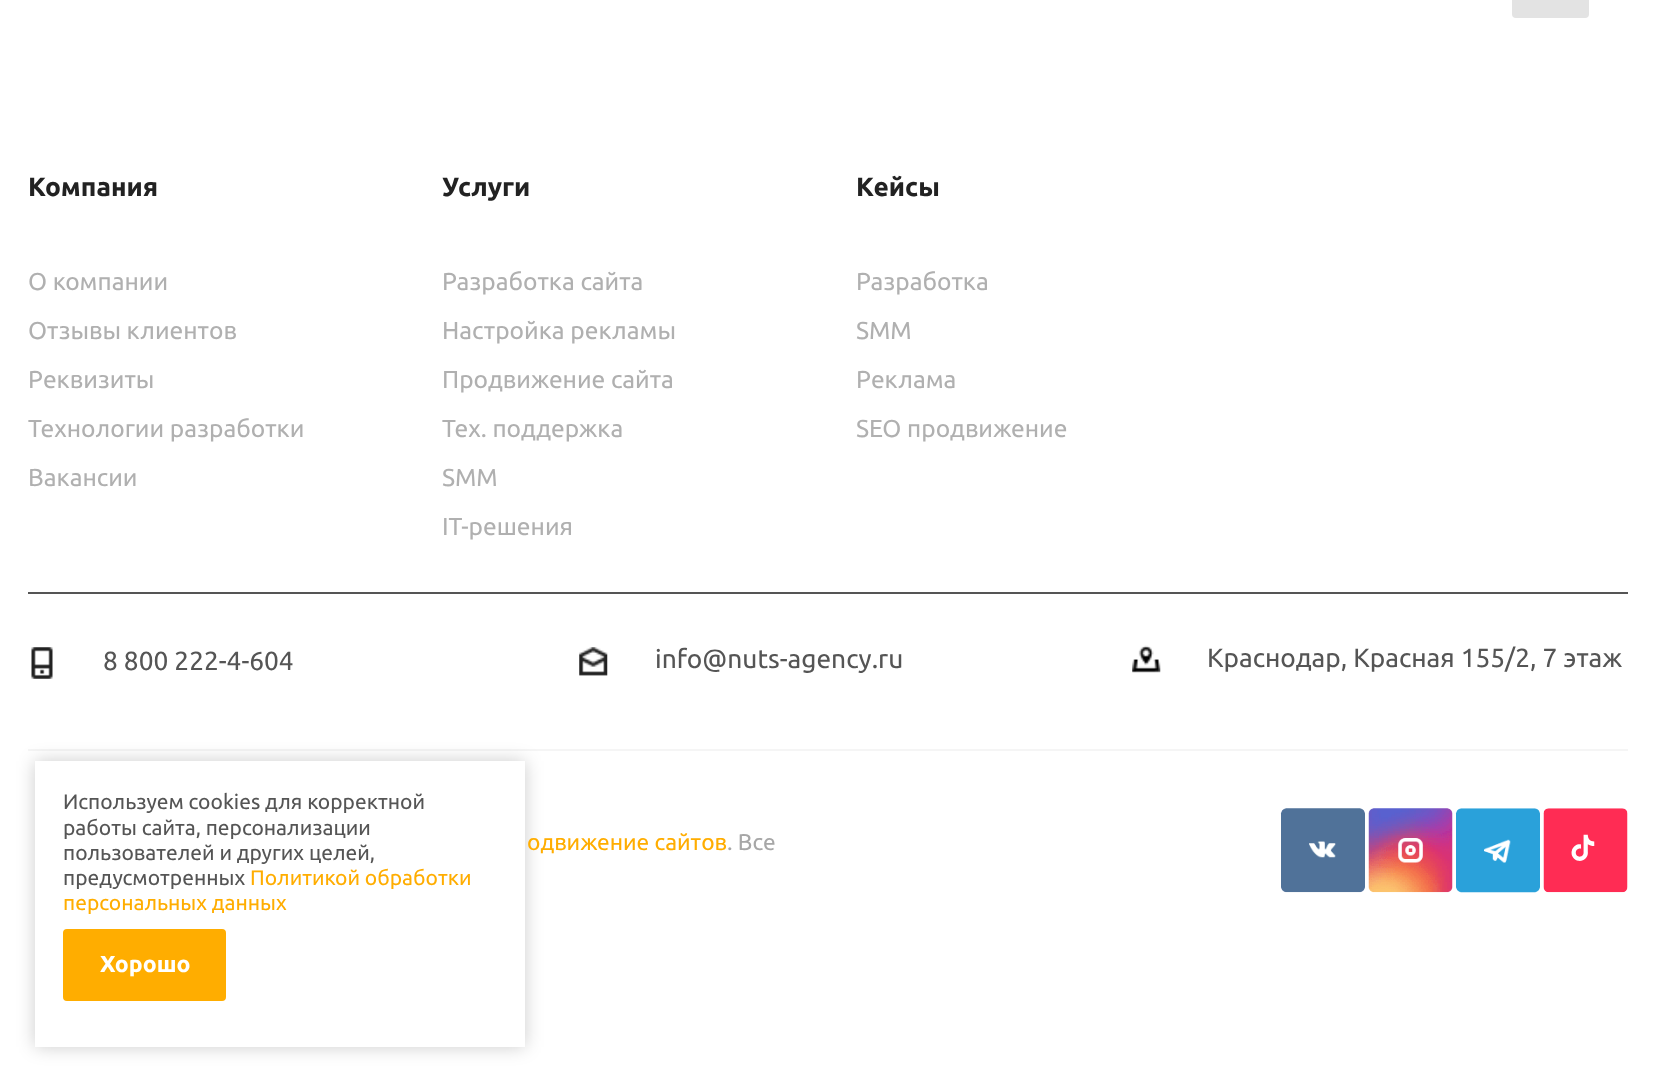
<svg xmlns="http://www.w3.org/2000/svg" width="1654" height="1081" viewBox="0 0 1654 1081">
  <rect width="100%" height="100%" fill="#fff"/>
  <rect x="1512" y="-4" width="77" height="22" rx="4" fill="#e3e3e3"/>
  <path d="M28 592h1600v2H28z" fill="#555"/>
  <image x="31" y="647" width="22" height="32" href="img/1.png"/>
  <image x="579" y="647" width="29" height="29" href="img/2.png"/>
  <image x="1132" y="645" width="29" height="28" href="img/3.png"/>
  <path d="M28 749h1600v2H28z" fill="#f5f5f5"/>
  <image x="1280" y="808" width="85" height="85" href="img/4.png"/>
  <image x="1368" y="808" width="85" height="85" href="img/5.png"/>
  <image x="1455" y="808" width="85" height="85" href="img/6.png"/>
  <image x="1543" y="808" width="85" height="85" href="img/7.png"/>
  <path d="M35 761h490v286H35z" fill="#00000033" filter="blur(9px)"/>
  <path d="M35 761h490v286H35z" fill="#fff"/>
  <rect x="64" y="930" width="161" height="70" rx="3" fill="#ffad00" stroke="#ffad00" stroke-width="2"/>
  <text x="28" y="196" font-family="Ubuntu" font-size="26.25" font-weight="bold" fill="#222">Компания</text>
  <g font-family="Ubuntu" font-size="24.5" fill="#b0b0b0">
    <text x="28" y="290">О компании</text>
    <text x="28" y="339">Отзывы клиентов</text>
    <text x="28" y="388">Реквизиты</text>
    <text x="28" y="437">Технологии разработки</text>
    <text x="28" y="486">Вакансии</text>
  </g>
  <text x="442" y="196" font-family="Ubuntu" font-size="26.25" font-weight="bold" fill="#222">Услуги</text>
  <g font-family="Ubuntu" font-size="24.5" fill="#b0b0b0">
    <text x="442" y="290">Разработка сайта</text>
    <text x="442" y="339">Настройка рекламы</text>
    <text x="442" y="388">Продвижение сайта</text>
    <text x="442" y="437">Тех. поддержка</text>
    <text x="442" y="486">SMM</text>
    <text x="442" y="535">IT-решения</text>
  </g>
  <text x="856" y="196" font-family="Ubuntu" font-size="26.25" font-weight="bold" fill="#222">Кейсы</text>
  <g font-family="Ubuntu" font-size="24.5" fill="#b0b0b0">
    <text x="856" y="290">Разработка</text>
    <text x="856" y="339">SMM</text>
    <text x="856" y="388">Реклама</text>
    <text x="856" y="437">SEO продвижение</text>
  </g>
  <g font-family="Ubuntu" font-size="26.25" fill="#555">
    <text x="103" y="670">8 800 222-4-604</text>
    <text x="655" y="668">info@nuts-agency.ru</text>
    <text x="1207" y="667">Краснодар, Красная 155/2, 7 этаж</text>
  </g>
  <text x="527" y="850" font-family="Ubuntu" font-size="22.75" fill="#ffad00">одвижение сайтов</text>
  <text x="727" y="850" font-family="Ubuntu" font-size="22.75" fill="#a7a7a7">. Все</text>
  <g font-family="Ubuntu" font-size="21" fill="#555">
    <text x="63" y="809">Используем cookies для корректной</text>
    <text x="63" y="835">работы сайта, персонализации</text>
    <text x="63" y="860">пользователей и других целей,</text>
    <text x="63" y="885">предусмотренных</text>
  </g>
  <g font-family="Ubuntu" font-size="21" fill="#ffad00">
    <text x="250" y="885">Политикой обработки</text>
    <text x="63" y="910">персональных данных</text>
  </g>
  <text x="100" y="972" font-family="Ubuntu" font-size="23" font-weight="bold" fill="#fff">Хорошо</text>
</svg>
